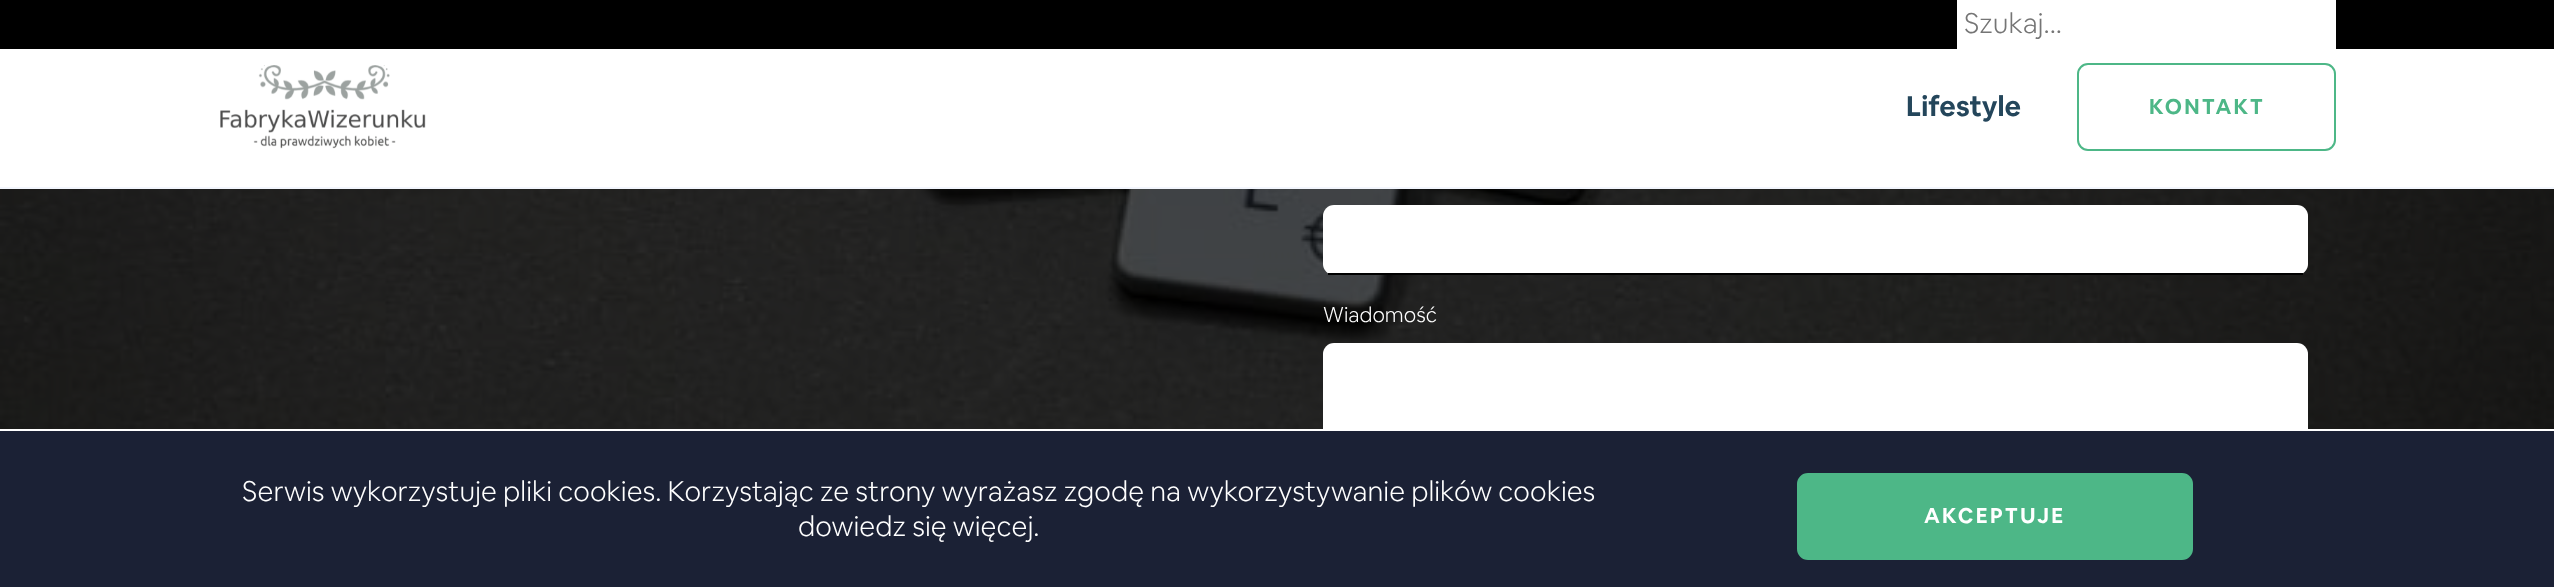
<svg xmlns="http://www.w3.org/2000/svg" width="2554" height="587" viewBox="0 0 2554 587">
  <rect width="100%" height="100%" fill="#fff"/>
  <path d="M0 187h2554v2H0z" fill="#f3f6fd"/>
  <path d="M0 0h2554v49H0z" fill="#000"/>
  <path d="M1957 0h379v49H1957z" fill="#fff"/>
  <image x="220" y="65" width="206" height="84" href="img/1.png"/>
  <rect x="2078" y="64" width="257" height="86" rx="10" fill="none" stroke="#4db787" stroke-width="2"/>
  <image x="0" y="189" width="2554" height="240" href="img/2.png"/>
  <rect x="1323" y="205" width="985" height="70" rx="11" fill="#fff"/>
  <path d="M1328 273h975v2H1328z" fill="#000"/>
  <rect x="1323" y="343" width="985" height="133" rx="11" fill="#fff"/>
  <path d="M0 431h2554v156H0z" fill="#1b2135"/>
  <rect x="1798" y="474" width="394" height="85" rx="10" fill="#4db787" stroke="#4db787" stroke-width="2"/>
  <text x="1964" y="33" font-family="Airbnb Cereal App" font-size="28" font-weight="300" fill="#757575">Szukaj...</text>
  <text x="1906" y="116" font-family="Airbnb Cereal App" font-size="28" font-weight="bold" fill="#24465b">Lifestyle</text>
  <text x="2149" y="114" font-family="Airbnb Cereal App" font-size="21" font-weight="bold" letter-spacing="2.25" fill="#4db787">KONTAKT</text>
  <text x="1323" y="322" font-family="Airbnb Cereal App" font-size="21" font-weight="300" fill="#fff">Wiadomość</text>
  <g font-family="Airbnb Cereal App" font-size="28" font-weight="300" fill="#fff">
    <text x="242" y="501">Serwis wykorzystuje pliki cookies. Korzystając ze strony wyrażasz zgodę na wykorzystywanie plików cookies</text>
    <text x="798" y="536">dowiedz się więcej.</text>
  </g>
  <text x="1924" y="523" font-family="Airbnb Cereal App" font-size="21" font-weight="bold" letter-spacing="2.25" fill="#fff">AKCEPTUJE</text>
</svg>
